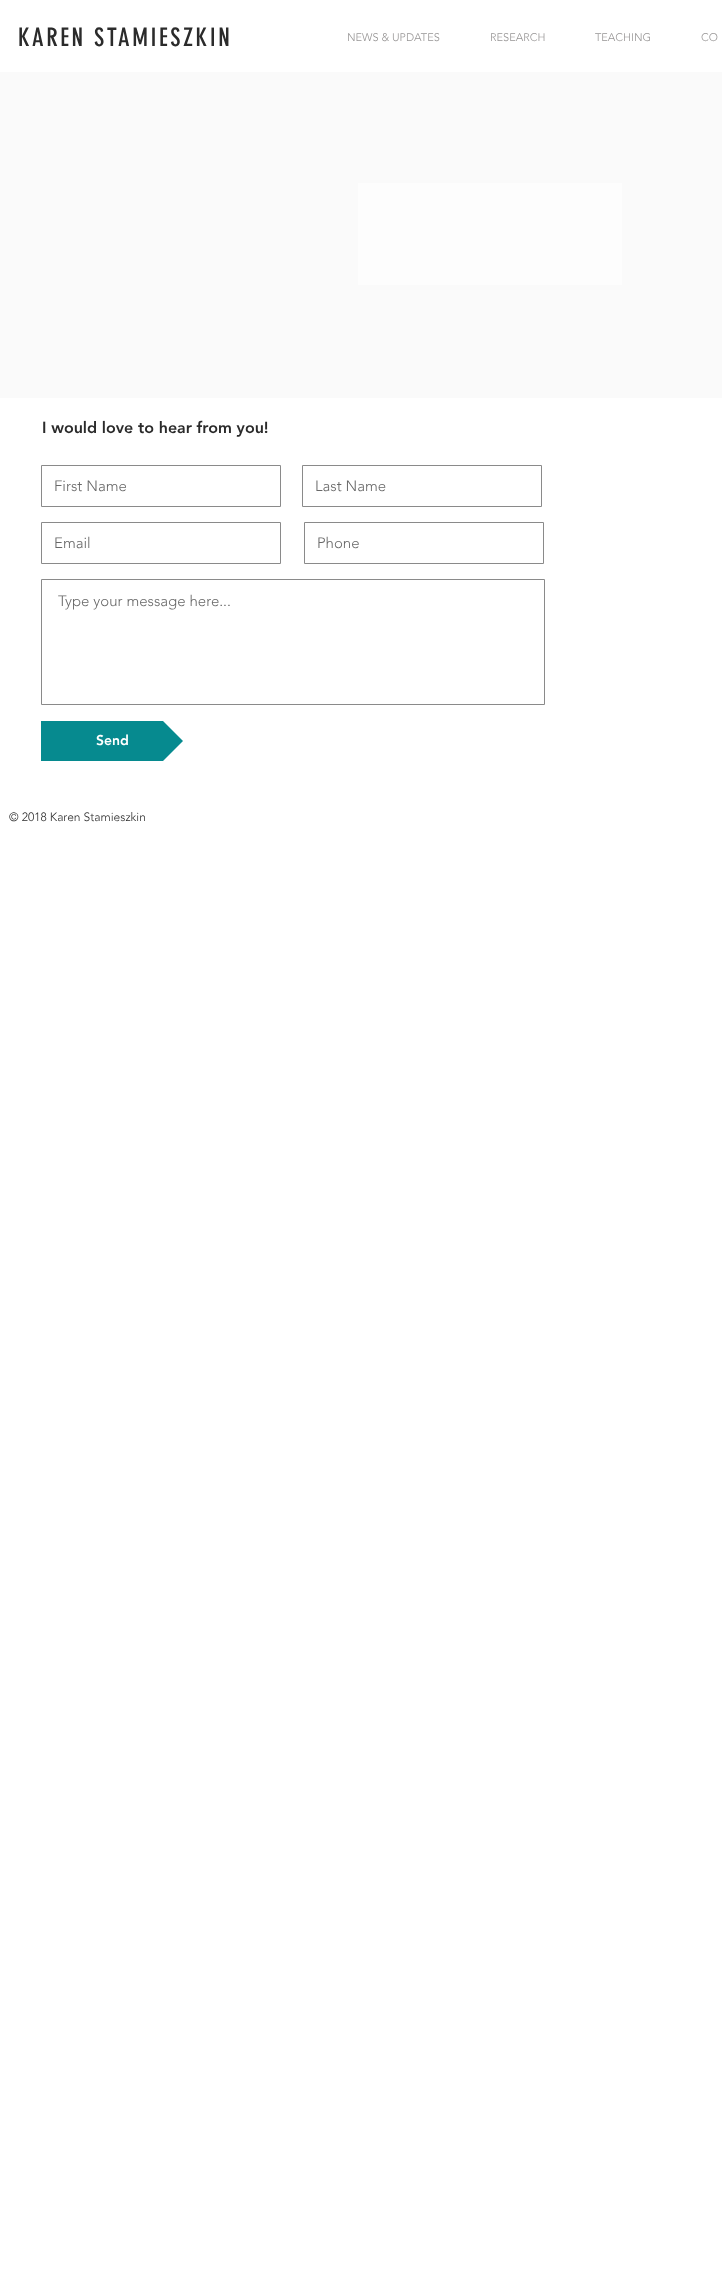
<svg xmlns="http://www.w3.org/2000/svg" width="722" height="2286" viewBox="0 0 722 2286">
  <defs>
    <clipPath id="clip1"><path d="M41 721h142v40H41z"/></clipPath>
  </defs>
  <rect width="100%" height="100%" fill="#fff"/>
  <path d="M0 72h722v326H0z" fill="#fafafa"/>
  <path d="M358 183h264v102H358z" fill="#fdfdfd"/>
  <path d="M41.5 465.5h239v41H41.5z" fill="none" stroke="#8a8a8a"/>
  <path d="M302.5 465.5h239v41H302.5z" fill="none" stroke="#8a8a8a"/>
  <path d="M41.5 522.5h239v41H41.5z" fill="none" stroke="#8a8a8a"/>
  <path d="M304.5 522.5h239v41H304.5z" fill="none" stroke="#8a8a8a"/>
  <path d="M41.5 579.5h503v125H41.5z" fill="none" stroke="#8a8a8a"/>
  <path d="M41 721h92v40H41z" fill="#068a8f"/>
  <g clip-path="url(#clip1)">
    <path d="M183 741H133V691ZM133 741H183L133 791Z" fill="#068a8f"/>
  </g>
  <text x="18" y="46" font-family="'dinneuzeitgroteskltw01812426'" font-size="25" letter-spacing="2.5" fill="#2b2b2b">KAREN STAMIESZKIN</text>
  <g font-family="'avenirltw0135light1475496'" font-size="11" font-weight="300" fill="#979595">
    <text x="347" y="41">NEWS &amp; UPDATES</text>
    <text x="490" y="41">RESEARCH</text>
    <text x="595" y="41">TEACHING</text>
    <text x="701" y="41">CO</text>
  </g>
  <text x="42" y="433" font-family="'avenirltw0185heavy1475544'" font-size="16" font-weight="900" fill="#2b2b2b">I would love to hear from you!</text>
  <g font-family="'avenirltw0135light1475496'" font-size="15" font-weight="300" fill="#686868">
    <text x="54" y="491">First Name</text>
    <text x="315" y="491">Last Name</text>
    <text x="54" y="548">Email</text>
    <text x="317" y="548">Phone</text>
    <text x="58" y="606">Type your message here...</text>
  </g>
  <text x="96" y="745" font-family="'avenirltw0185heavy1475544'" font-size="14" font-weight="900" fill="#fff">Send</text>
  <text x="9" y="821" font-family="'avenirltw0135light1475496'" font-size="12" font-weight="300" fill="#2b2b2b">© 2018 Karen Stamieszkin</text>
</svg>
